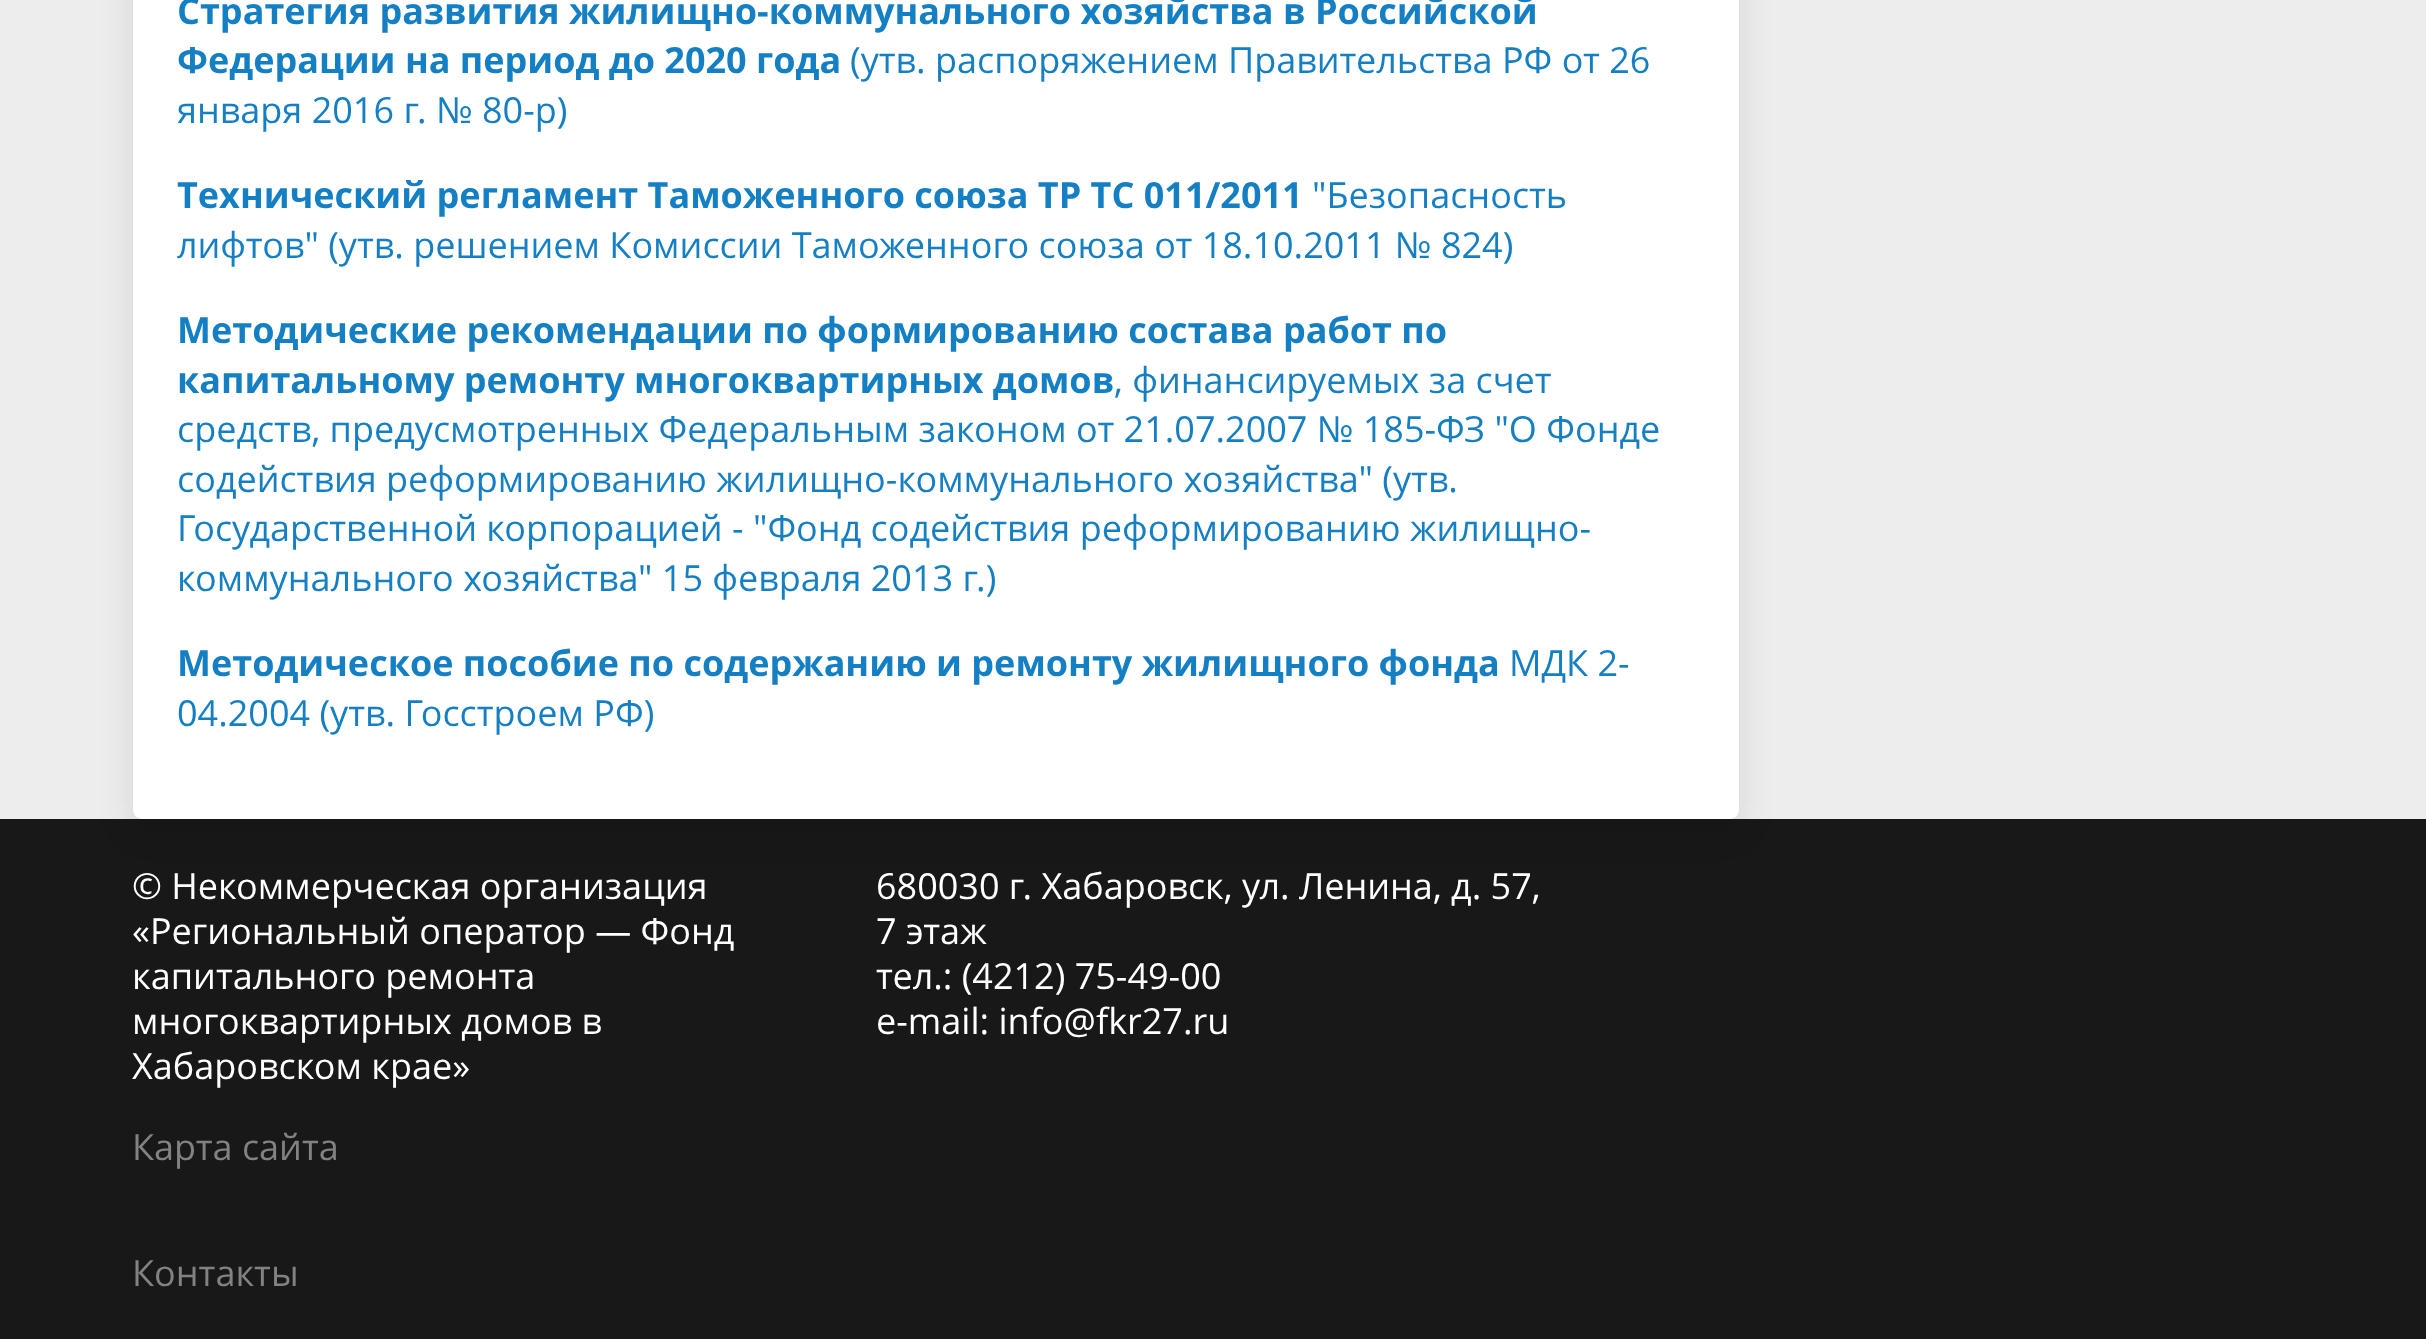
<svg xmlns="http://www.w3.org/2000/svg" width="2426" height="1339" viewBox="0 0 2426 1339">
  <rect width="100%" height="100%" fill="#ededed"/>
  <path d="M0 819h2426v520H0z" fill="#181818"/>
  <rect x="133" y="-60" width="1606" height="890" rx="9" fill="#0000001a" filter="blur(17px)"/>
  <rect x="133" y="-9" width="1606" height="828" rx="9" fill="#fff"/>
  <g font-family="Open Sans" font-size="36" font-weight="bold" fill="#157fc4">
    <text x="177" y="24">Стратегия развития жилищно-коммунального хозяйства в Российской</text>
    <text x="177" y="73">Федерации на период до 2020 года</text>
  </g>
  <g font-family="Open Sans" font-size="36" fill="#157fc4">
    <text x="850" y="73">(утв. распоряжением Правительства РФ от 26</text>
    <text x="177" y="123">января 2016 г. № 80-р)</text>
  </g>
  <text x="177" y="208" font-family="Open Sans" font-size="36" font-weight="bold" fill="#157fc4">Технический регламент Таможенного союза ТР ТС 011/2011</text>
  <g font-family="Open Sans" font-size="36" fill="#157fc4">
    <text x="1312" y="208">"Безопасность</text>
    <text x="177" y="258">лифтов" (утв. решением Комиссии Таможенного союза от 18.10.2011 № 824)</text>
  </g>
  <g font-family="Open Sans" font-size="36" font-weight="bold" fill="#157fc4">
    <text x="177" y="343">Методические рекомендации по формированию состава работ по</text>
    <text x="177" y="393">капитальному ремонту многоквартирных домов</text>
  </g>
  <g font-family="Open Sans" font-size="36" fill="#157fc4">
    <text x="1114" y="393">, финансируемых за счет</text>
    <text x="177" y="442">средств, предусмотренных Федеральным законом от 21.07.2007 № 185-ФЗ "О Фонде</text>
    <text x="177" y="492">содействия реформированию жилищно-коммунального хозяйства" (утв.</text>
    <text x="177" y="541">Государственной корпорацией - "Фонд содействия реформированию жилищно-</text>
    <text x="177" y="591">коммунального хозяйства" 15 февраля 2013 г.)</text>
  </g>
  <text x="177" y="676" font-family="Open Sans" font-size="36" font-weight="bold" fill="#157fc4">Методическое пособие по содержанию и ремонту жилищного фонда</text>
  <g font-family="Open Sans" font-size="36" fill="#157fc4">
    <text x="1509" y="676">МДК 2-</text>
    <text x="177" y="726">04.2004 (утв. Госстроем РФ)</text>
  </g>
  <g font-family="Open Sans" font-size="36" fill="#fff">
    <text x="132" y="899">© Некоммерческая организация</text>
    <text x="132" y="944">«Региональный оператор — Фонд</text>
    <text x="132" y="989">капитального ремонта</text>
    <text x="132" y="1034">многоквартирных домов в</text>
    <text x="132" y="1079">Хабаровском крае»</text>
  </g>
  <g font-family="Open Sans" font-size="36" fill="#828282">
    <text x="132" y="1160">Карта сайта</text>
    <text x="132" y="1286">Контакты</text>
  </g>
  <g font-family="Open Sans" font-size="36" fill="#fff">
    <text x="876" y="899">680030 г. Хабаровск, ул. Ленина, д. 57,</text>
    <text x="876" y="944">7 этаж</text>
    <text x="876" y="989">тел.: (4212) 75-49-00</text>
    <text x="876" y="1034">e-mail: info@fkr27.ru</text>
  </g>
</svg>
